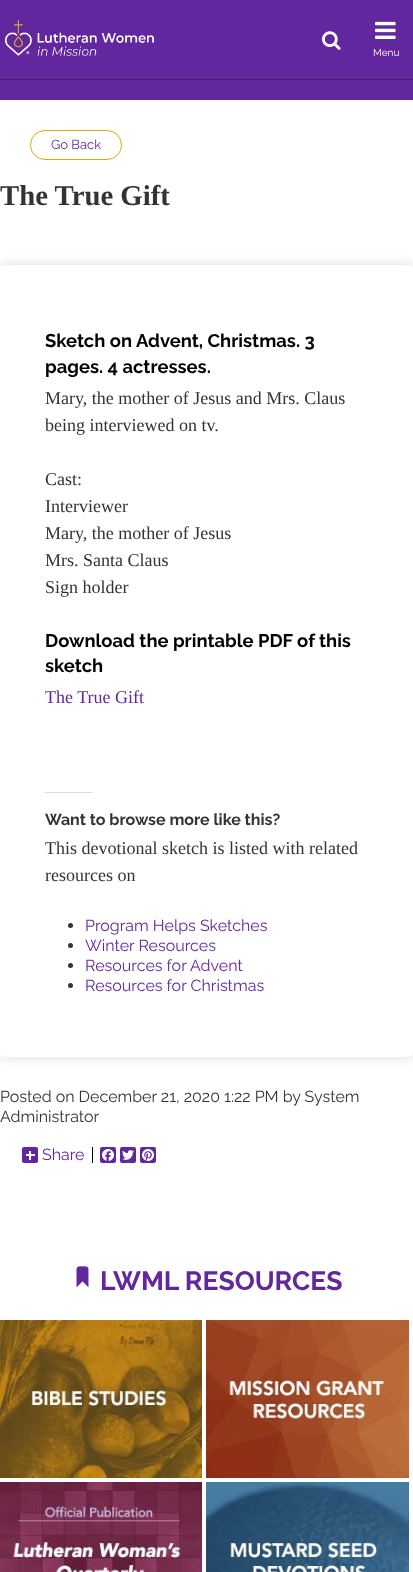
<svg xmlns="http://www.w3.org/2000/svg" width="413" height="1572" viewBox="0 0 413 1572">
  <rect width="100%" height="100%" fill="#fff"/>
  <path d="M0 0h413v100H0z" fill="#62269e"/>
  <path d="M0 79h413v1H0z" fill="#3f2565"/>
  <image x="5" y="20" width="149" height="36" href="img/1.png"/>
  <image x="322" y="31" width="19" height="19" href="img/2.png"/>
  <image x="375" y="21" width="21" height="18" href="img/3.png"/>
  <rect x="30.5" y="130.5" width="91" height="29" rx="14.5" fill="none" stroke="#dcaa00"/>
  <rect y="265" width="413" height="792" rx="5" fill="#00000026" filter="blur(6px)"/>
  <rect y="265" width="413" height="792" rx="5" fill="#fff"/>
  <path d="M45 792h48v1H45z" fill="#ddd"/>
  <circle cx="70.5" cy="925.5" r="2.5" fill="#333"/>
  <circle cx="70.5" cy="945.5" r="2.5" fill="#333"/>
  <circle cx="70.5" cy="965.5" r="2.5" fill="#333"/>
  <circle cx="70.5" cy="985.5" r="2.5" fill="#333"/>
  <rect x="22" y="1147" width="16" height="16" rx="2" fill="#62269e"/>
  <path d="M29 1151h2v9H29z" fill="#fff"/>
  <path d="M26 1154h9v2H26z" fill="#fff"/>
  <path d="M92 1147h1v16H92z" fill="#000"/>
  <rect x="100" y="1147" width="16" height="16" rx="2" fill="#62269e"/>
  <image x="102" y="1149" width="12" height="12" href="img/4.png"/>
  <rect x="120" y="1147" width="16" height="16" rx="2" fill="#62269e"/>
  <image x="122" y="1150" width="12" height="10" href="img/5.png"/>
  <rect x="140" y="1147" width="16" height="16" rx="2" fill="#62269e"/>
  <image x="142" y="1149" width="12" height="12" href="img/6.png"/>
  <image x="76" y="1266" width="13" height="22" href="img/7.png"/>
  <image x="0" y="1320" width="202" height="158" href="img/8.png"/>
  <image x="206" y="1320" width="203" height="158" href="img/9.png"/>
  <image x="0" y="1482" width="202" height="90" href="img/10.png"/>
  <image x="206" y="1482" width="203" height="90" href="img/11.png"/>
  <text x="373" y="56" font-family="Raleway" font-size="10" fill="#fff">Menu</text>
  <text x="51" y="149" font-family="Raleway" font-size="13" fill="#62269e">Go Back</text>
  <text x="0" y="205" font-family="Liberation Serif" font-size="28.75" font-weight="bold" fill="#333">The True Gift</text>
  <g font-family="Raleway" font-size="18.4" font-weight="bold" fill="#000">
    <text x="45" y="347">Sketch on</text>
    <text x="136" y="347">Advent, Christmas. 3</text>
    <text x="45" y="373">pages. 4 actresses.</text>
  </g>
  <g font-family="Liberation Serif" font-size="18" fill="#333">
    <text x="45" y="404">Mary, the mother of Jesus and Mrs. Claus</text>
    <text x="45" y="431">being interviewed on tv.</text>
    <text x="45" y="485">Cast:</text>
    <text x="45" y="512">Interviewer</text>
    <text x="45" y="539">Mary, the mother of Jesus</text>
    <text x="45" y="566">Mrs. Santa Claus</text>
    <text x="45" y="593">Sign holder</text>
  </g>
  <g font-family="Raleway" font-size="18.4" font-weight="bold" fill="#000">
    <text x="45" y="647">Download the printable PDF of this</text>
    <text x="45" y="672">sketch</text>
  </g>
  <text x="45" y="703" font-family="Liberation Serif" font-size="18" fill="#62269e">The True Gift</text>
  <text x="45" y="825" font-family="Raleway" font-size="16" font-weight="bold" fill="#333">Want to browse more like this?</text>
  <g font-family="Liberation Serif" font-size="18" fill="#333">
    <text x="45" y="854">This devotional sketch is listed with related</text>
    <text x="45" y="881">resources on</text>
  </g>
  <g font-family="Raleway" font-size="16" fill="#62269e">
    <text x="85" y="931">Program Helps Sketches</text>
    <text x="85" y="951">Winter Resources</text>
    <text x="85" y="971">Resources for Advent</text>
    <text x="85" y="991">Resources for Christmas</text>
  </g>
  <g font-family="Raleway" font-size="16" fill="#333">
    <text x="0" y="1102">Posted on December 21, 2020 1:22 PM by System</text>
    <text x="0" y="1122">Administrator</text>
  </g>
  <text x="42" y="1160" font-family="Raleway" font-size="16" fill="#62269e">Share</text>
  <text x="100" y="1290" font-family="Raleway" font-size="26.5" font-weight="bold" fill="#62269e">LWML RESOURCES</text>
</svg>
